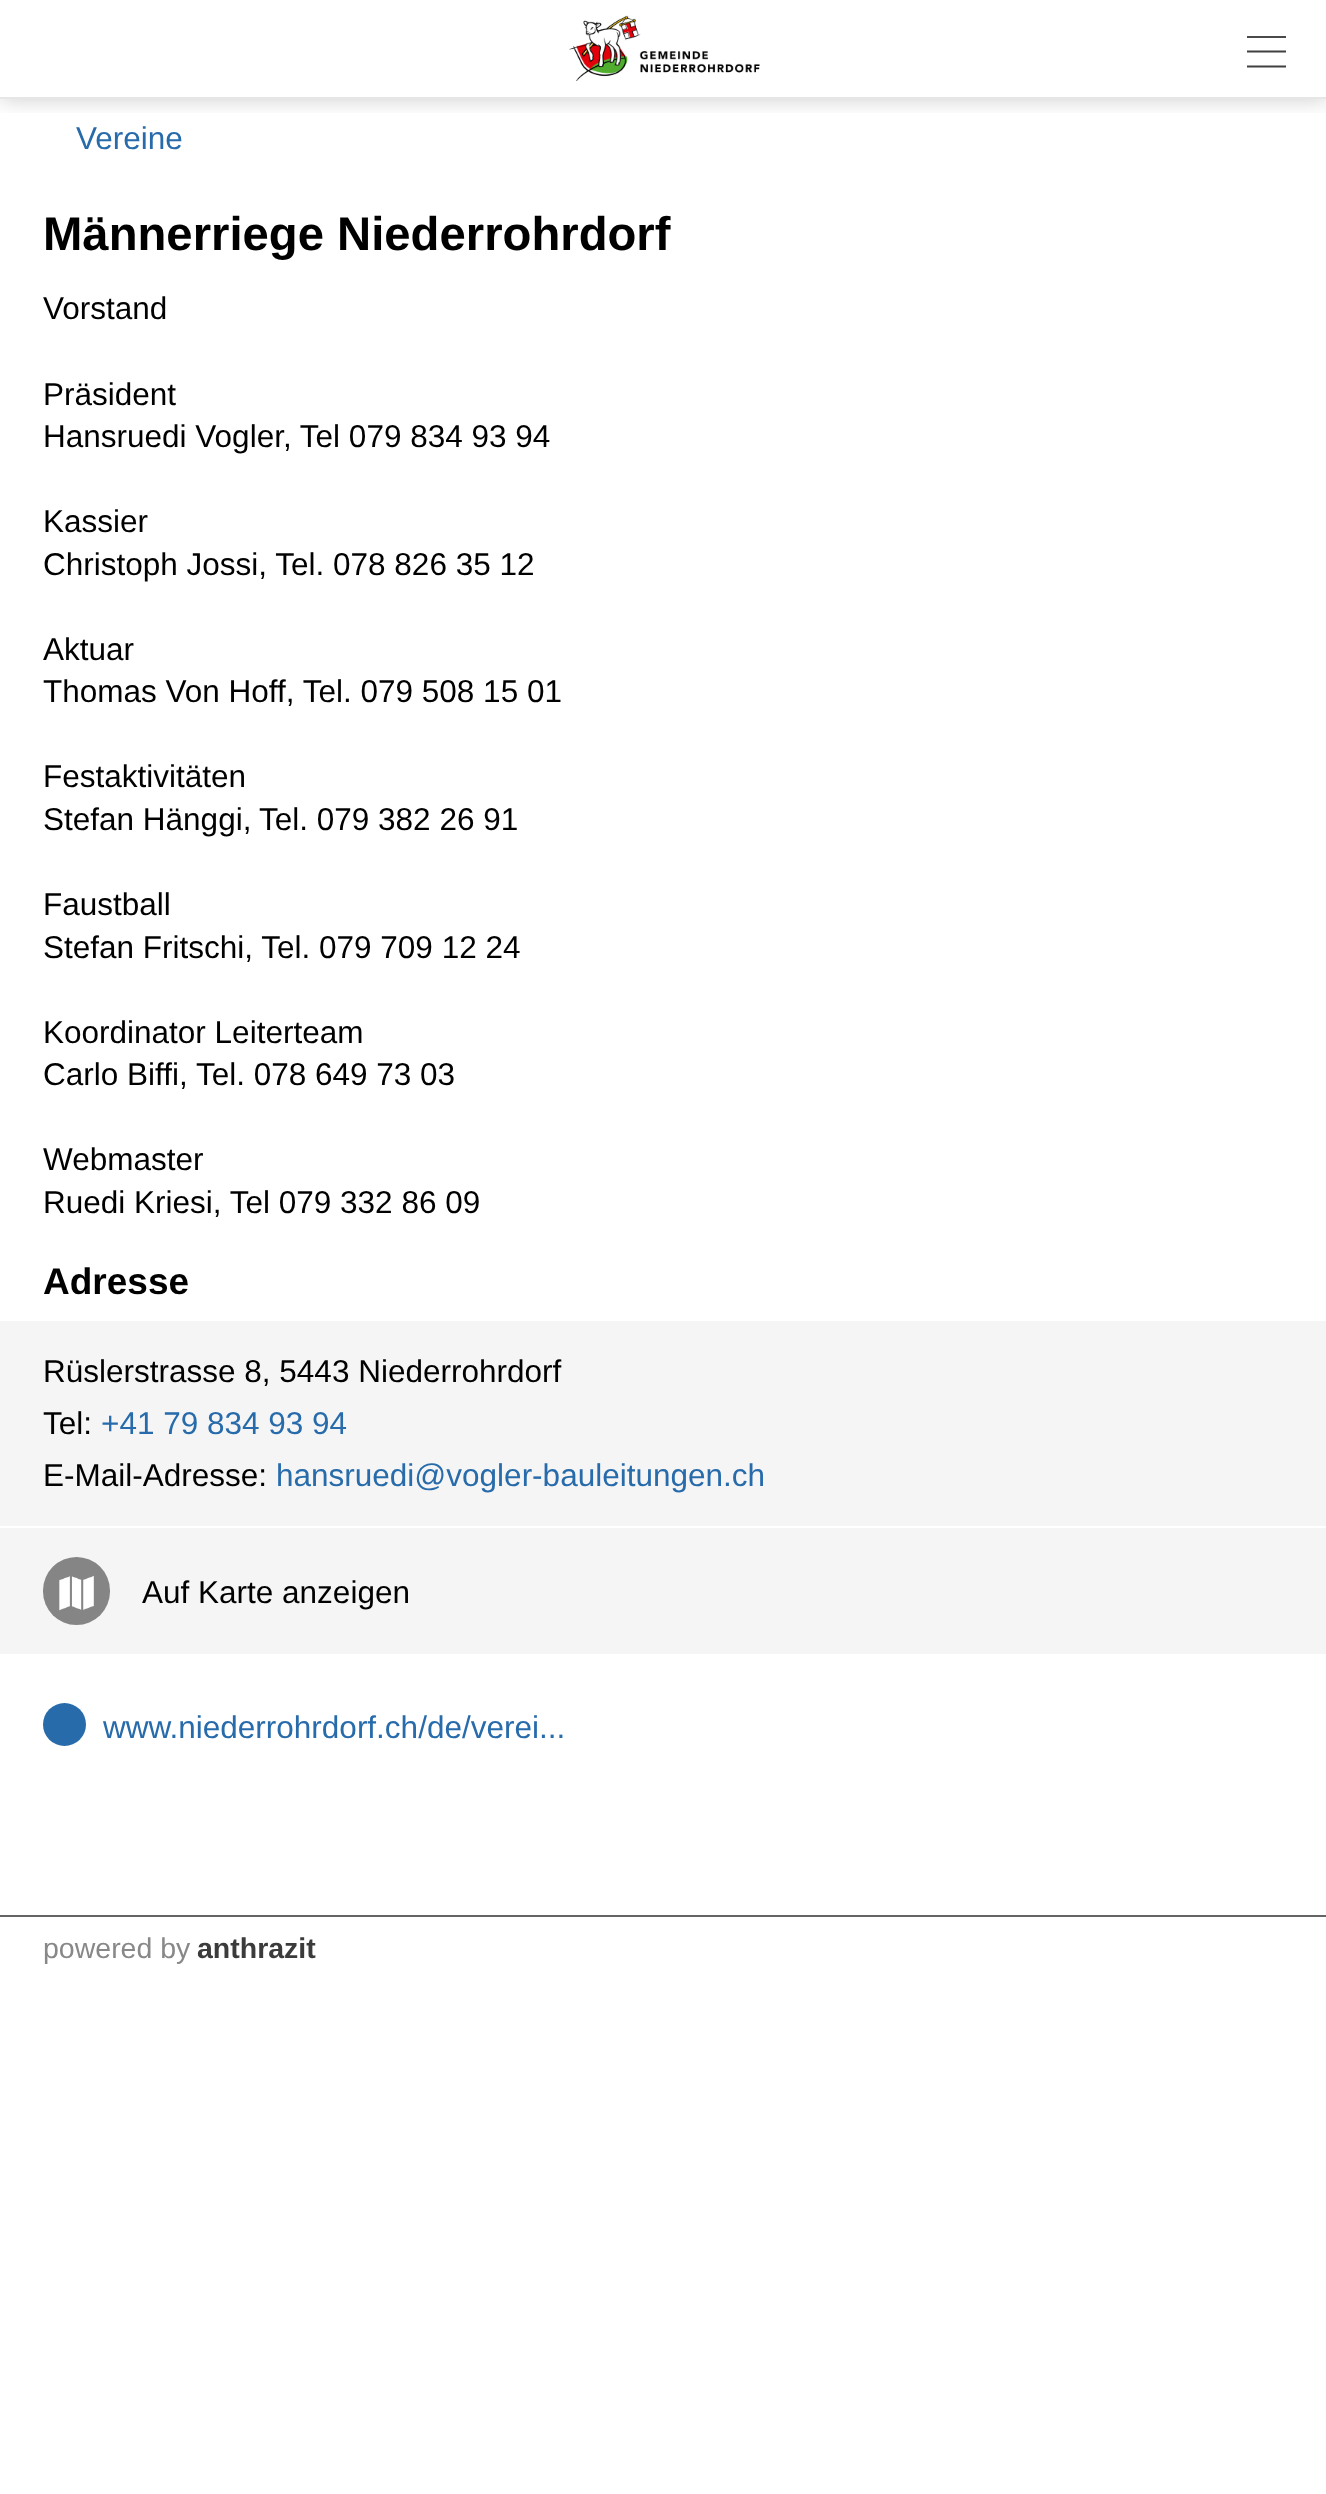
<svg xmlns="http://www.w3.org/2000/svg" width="1326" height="2494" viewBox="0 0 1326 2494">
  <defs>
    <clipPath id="clip1"><path d="M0 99h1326v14H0z"/></clipPath>
    <clipPath id="clip2"><path d="M1247 27h40v50H1247z"/></clipPath>
  </defs>
  <rect width="100%" height="100%" fill="#fff"/>
  <g clip-path="url(#clip1)">
    <path d="M0 0h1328v99H0z" fill="#00000033" filter="blur(11px)"/>
  </g>
  <path d="M0 97h1326v2H0z" fill="#e6e6e6"/>
  <image x="569" y="15" width="191" height="66" href="img/1.png"/>
  <path d="M1247 36h39v2H1247z" fill="#4a4a4a"/>
  <g clip-path="url(#clip2)">
    <path d="M1246.5 51.5H1286M1246.5 66.5H1286" fill="none" stroke="#404040" stroke-width="1.9" stroke-linejoin="round"/>
  </g>
  <path d="M0 1321h1326v205H0z" fill="#f5f5f5"/>
  <path d="M0 1528h1326v126H0z" fill="#f5f5f5"/>
  <rect x="43" y="1557" width="67" height="68" rx="33.5" fill="#858585"/>
  <image x="59" y="1575" width="35" height="36" href="img/2.png"/>
  <circle cx="64.5" cy="1724.5" r="21.5" fill="#276bab"/>
  <path d="M0 1915h1326v2H0z" fill="#646464"/>
  <text x="76" y="149" font-family="Liberation Sans" font-size="31.5" fill="#276bab">Vereine</text>
  <text x="43" y="250" font-family="Liberation Sans" font-size="47.25" font-weight="bold" fill="#000">Männerriege Niederrohrdorf</text>
  <g font-family="Liberation Sans" font-size="31.5" fill="#000">
    <text x="43" y="319">Vorstand</text>
    <text x="43" y="405">Präsident</text>
    <text x="43" y="447">Hansruedi Vogler, Tel 079 834 93 94</text>
    <text x="43" y="532">Kassier</text>
    <text x="43" y="575">Christoph Jossi, Tel. 078 826 35 12</text>
    <text x="43" y="660">Aktuar</text>
    <text x="43" y="702">Thomas Von Hoff, Tel. 079 508 15 01</text>
    <text x="43" y="787">Festaktivitäten</text>
    <text x="43" y="830">Stefan Hänggi,</text>
    <text x="259" y="830">Tel. 079 382 26 91</text>
    <text x="43" y="915">Faustball</text>
    <text x="43" y="958">Stefan Fritschi, Tel. 079 709 12 24</text>
    <text x="43" y="1043">Koordinator Leiterteam</text>
    <text x="43" y="1085">Carlo Biffi, Tel. 078 649 73 03</text>
    <text x="43" y="1170">Webmaster</text>
    <text x="43" y="1213">Ruedi Kriesi, Tel 079 332 86 09</text>
  </g>
  <text x="43" y="1294" font-family="Liberation Sans" font-size="37" font-weight="bold" fill="#000">Adresse</text>
  <g font-family="Liberation Sans" font-size="31.5" fill="#000">
    <text x="43" y="1382">Rüslerstrasse 8, 5443 Niederrohrdorf</text>
    <text x="43" y="1434">Tel:</text>
  </g>
  <text x="101" y="1434" font-family="Liberation Sans" font-size="31.5" fill="#276bab">+41 79 834 93 94</text>
  <text x="43" y="1486" font-family="Liberation Sans" font-size="31.5" fill="#000">E-Mail-Adresse:</text>
  <text x="276" y="1486" font-family="Liberation Sans" font-size="31.5" fill="#276bab">hansruedi@vogler-bauleitungen.ch</text>
  <text x="142" y="1603" font-family="Liberation Sans" font-size="31.5" fill="#000">Auf Karte anzeigen</text>
  <text x="103" y="1738" font-family="Liberation Sans" font-size="31.5" fill="#276bab">www.niederrohrdorf.ch/de/verei...</text>
  <text x="43" y="1958" font-family="Liberation Sans" font-size="28.5" fill="#888">powered by</text>
  <text x="197" y="1958" font-family="Liberation Sans" font-size="28.5" font-weight="bold" fill="#3b3b3b">anthrazit</text>
</svg>
